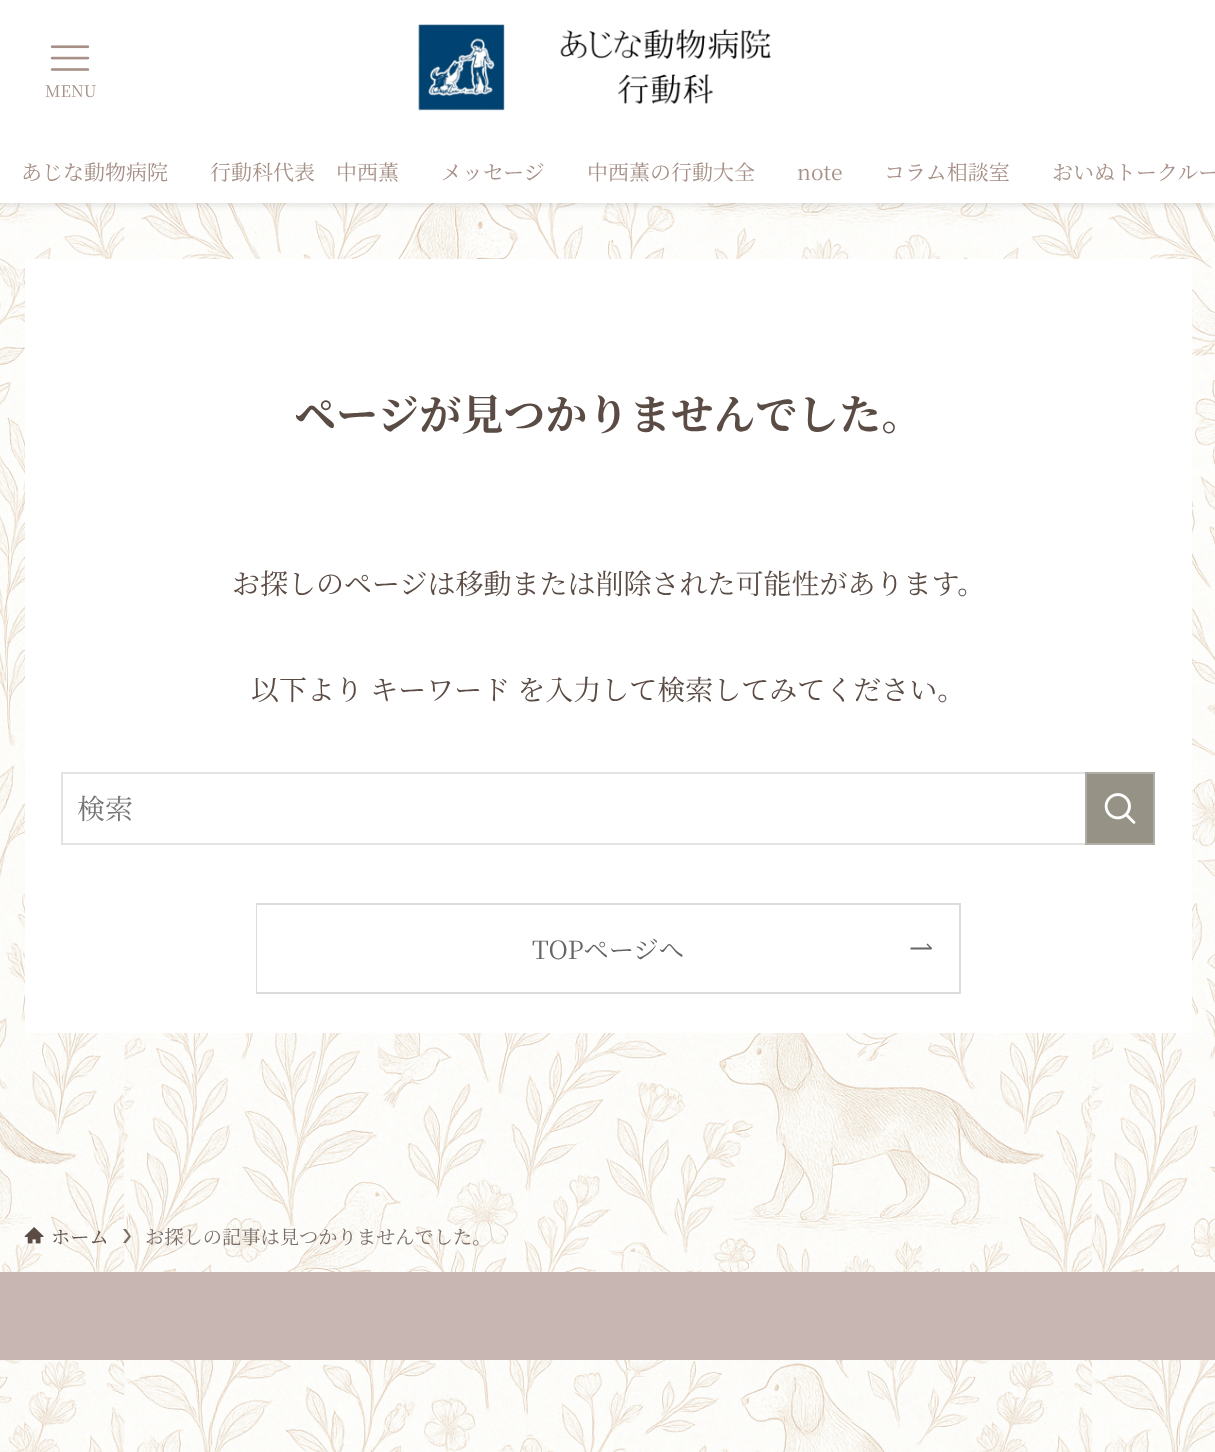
<svg xmlns="http://www.w3.org/2000/svg" width="1215" height="1452" viewBox="0 0 1215 1452">
  <rect width="100%" height="100%" fill="#fff"/>
  <image x="0" y="203" width="1215" height="1249" href="img/3.png"/>
  <path d="M0 2h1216v203H0z" fill="#0000001f" filter="blur(3.5px)"/>
  <path d="M0 0h1215v203H0z" fill="#fff"/>
  <image x="50" y="45" width="40" height="26" href="img/1.png"/>
  <image x="418" y="24" width="353" height="87" href="img/2.png"/>
  <path d="M25 259h1167v774H25z" fill="#fff"/>
  <path d="M62 773h1092v71H62z" fill="none" stroke="#e3e3e3" stroke-width="2"/>
  <path d="M1086 773h68v71H1086z" fill="#969285" stroke="#afada6" stroke-width="2"/>
  <image x="1104" y="793" width="32" height="31" href="img/4.png"/>
  <path d="M257 904h703v89H257z" fill="none" stroke="#dcdcdc" stroke-width="2"/>
  <path d="M257 905h1v87H257z" fill="#fff"/>
  <path d="M931.5 949.5H910.5V947.5H929.5L926.5 944.5L927.5 943.5L932 948Z" fill="#666"/>
  <image x="24" y="1227" width="20" height="17" href="img/5.png"/>
  <path d="M126 1229H123L128.5 1236L123 1243H126L131 1236.5Z" fill="#5a4b44cc"/>
  <path d="M0 1272h1215v88H0z" fill="#c8b6b3"/>
  <text x="45" y="97" font-family="Noto Serif JP" font-size="16" fill="#a58f86">MENU</text>
  <g font-family="Noto Serif JP" font-size="21" fill="#a58f86">
    <text x="21" y="180">あじな動物病院</text>
    <text x="210" y="180">行動科代表　中西薫</text>
    <text x="441" y="180">メッセージ</text>
    <text x="587" y="180">中西薫の行動大全</text>
    <text x="797" y="180">note</text>
    <text x="884" y="180">コラム相談室</text>
    <text x="1052" y="180">おいぬトークルー</text>
  </g>
  <text x="294" y="430" font-family="Noto Serif JP" font-size="42" font-weight="bold" fill="#5a4b44">ページが見つかりませんでした。</text>
  <g font-family="Noto Serif JP" font-size="28" fill="#5a4b44">
    <text x="232" y="594">お探しのページは移動または削除された可能性があります。</text>
    <text x="251" y="700">以下より キーワード を入力して検索してみてください。</text>
  </g>
  <text x="77" y="819" font-family="Noto Serif JP" font-size="28" fill="#757575">検索</text>
  <text x="532" y="959" font-family="Noto Serif JP" font-size="25.25" fill="#666">TOPページへ</text>
  <text x="51" y="1244" font-family="Noto Serif JP" font-size="19.25" fill="#5a4b44">ホーム</text>
  <text x="145" y="1244" font-family="Noto Serif JP" font-size="19.25" fill="#7a6d67">お探しの記事は見つかりませんでした。</text>
</svg>
